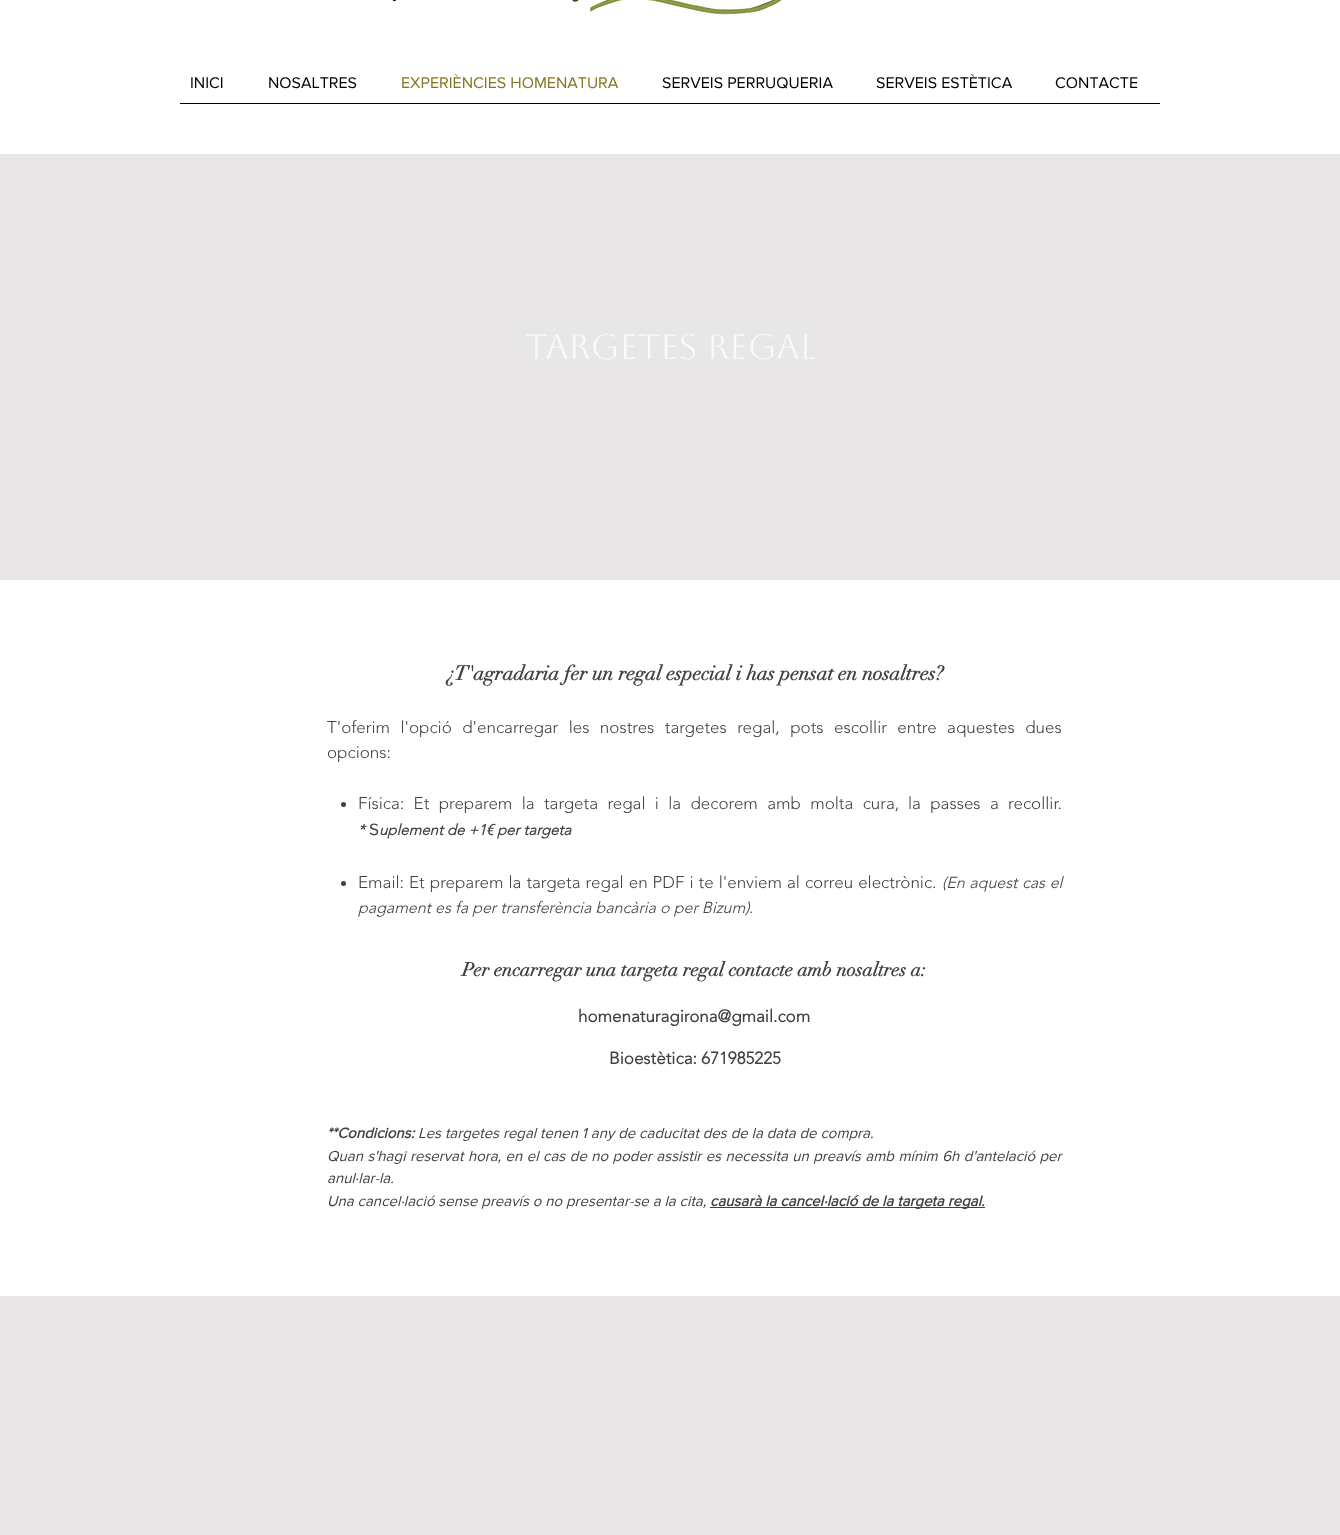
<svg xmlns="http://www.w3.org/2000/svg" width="1340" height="1535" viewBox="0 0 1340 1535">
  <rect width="100%" height="100%" fill="#fff"/>
  <image x="392" y="0" width="393" height="16" href="img/1.png"/>
  <path d="M180 103h980v1H180z" fill="#000"/>
  <path d="M0 154h1340v426H0z" fill="#e8e6e6"/>
  <circle cx="343.5" cy="804.5" r="2.5" fill="#414141"/>
  <circle cx="343.5" cy="883.5" r="2.5" fill="#414141"/>
  <path d="M710 1207h275v1H710z" fill="#414141"/>
  <path d="M0 1296h1340v239H0z" fill="#e8e6e6"/>
  <g font-family="'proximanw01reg'" font-size="16" fill="#000">
    <text x="190" y="88">INICI</text>
    <text x="268" y="88">NOSALTRES</text>
  </g>
  <text x="401" y="88" font-family="'proximanw01reg'" font-size="16" fill="#877521">EXPERIÈNCIES HOMENATURA</text>
  <g font-family="'proximanw01reg'" font-size="16" fill="#000">
    <text x="662" y="88">SERVEIS PERRUQUERIA</text>
    <text x="876" y="88">SERVEIS ESTÈTICA</text>
    <text x="1055" y="88">CONTACTE</text>
  </g>
  <text x="525" y="359" font-family="Aboreto" font-size="35" fill="#fafafa">Targetes regal</text>
  <text x="446" y="680" font-family="didot" font-size="20" font-weight="bold" fill="#414141">¿T'agradaria fer un regal especial i has pensat en nosaltres?</text>
  <g font-family="'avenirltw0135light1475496'" font-size="17" font-weight="300" fill="#414141">
    <text x="327" y="733" word-spacing="6">T'oferim l'opció d'encarregar les nostres targetes regal, pots escollir entre aquestes dues</text>
    <text x="327" y="758">opcions:</text>
    <text x="358" y="809" word-spacing="4.9">Física: Et preparem la targeta regal i la decorem amb molta cura,</text>
    <text x="908" y="809" word-spacing="4.9">la passes a recollir.</text>
  </g>
  <text x="358" y="835" font-family="'avenirltw0135light1475496'" font-size="15" font-weight="bold" font-style="italic" fill="#414141">*</text>
  <text x="369" y="835" font-family="'proximanw01reg'" font-size="17" fill="#414141">S</text>
  <text x="379" y="835" font-family="'avenirltw0135light1475496'" font-size="15" font-weight="bold" font-style="italic" fill="#414141">uplement de +1€ per targeta</text>
  <text x="358" y="888" word-spacing="0.6" font-family="'avenirltw0135light1475496'" font-size="17" font-weight="300" fill="#414141">Email: Et preparem la targeta regal en PDF i te l'enviem al correu electrònic.</text>
  <g font-family="'avenirltw0135light1475496'" font-size="16" font-weight="300" font-style="italic" fill="#414141">
    <text x="942" y="888" word-spacing="0.6">(En aquest cas el</text>
    <text x="358" y="913">pagament es fa per transferència bancària o per Bizum)</text>
  </g>
  <text x="749" y="913" font-family="'avenirltw0135light1475496'" font-size="16" font-weight="300" fill="#414141">.</text>
  <text x="462" y="976" font-family="didot" font-size="19" font-weight="bold" fill="#414141">Per encarregar una targeta regal contacte amb nosaltres a:</text>
  <g font-family="'avenirltw0135light1475496'" font-size="17" font-weight="bold" fill="#414141">
    <text x="578" y="1022">homenaturagirona@gmail.com</text>
    <text x="609" y="1064">Bioestètica: 671985225</text>
  </g>
  <text x="327" y="1138" font-family="'proximanw01reg'" font-size="15" font-weight="bold" font-style="italic" fill="#414141">**Condicions:</text>
  <g font-family="'proximanw01reg'" font-size="15" font-style="italic" fill="#414141">
    <text x="418" y="1138">Les targetes regal tenen 1 any de caducitat des de la data de compra.</text>
    <text x="327" y="1161" word-spacing="0.6">Quan s'hagi reservat hora, en el cas de no poder assistir es necessita un preavís amb mínim 6h d'antelació per</text>
    <text x="327" y="1183">anul·lar-la.</text>
    <text x="327" y="1206">Una cancel·lació sense preavís o no presentar-se a la cita,</text>
  </g>
  <text x="710" y="1206" font-family="'proximanw01reg'" font-size="15" font-weight="bold" font-style="italic" fill="#414141">causarà la cancel·lació de la targeta regal.</text>
</svg>
